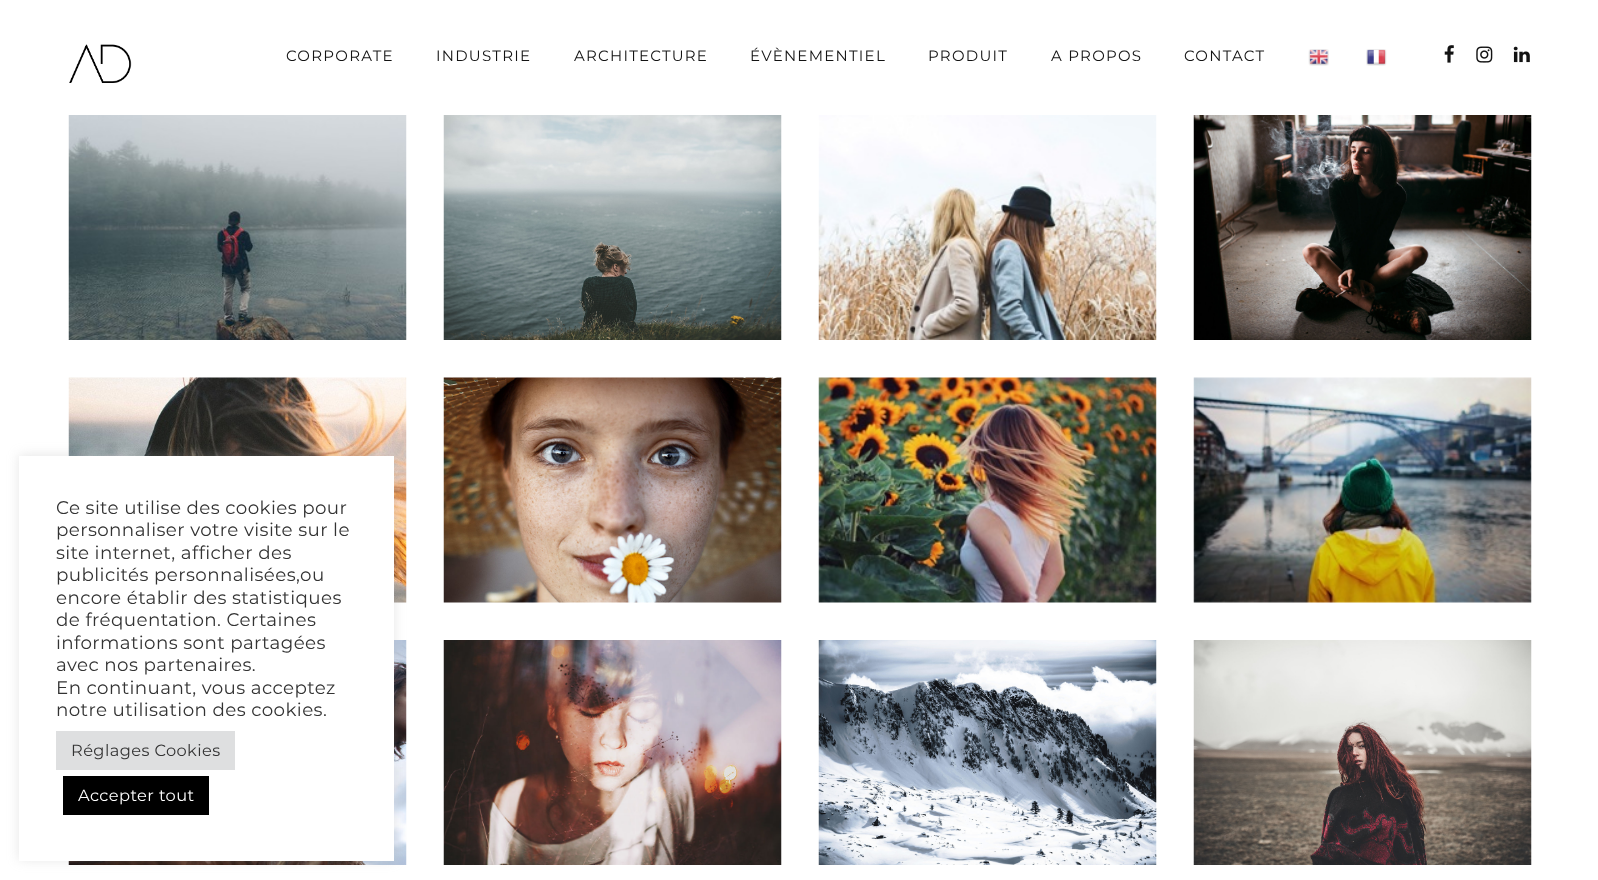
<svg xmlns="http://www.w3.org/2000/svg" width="1598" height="880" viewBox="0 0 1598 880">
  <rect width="100%" height="100%" fill="#fff"/>
  <image x="69" y="44" width="63" height="39" href="img/1.png"/>
  <image x="1308" y="49" width="21" height="17" href="img/2.png"/>
  <image x="1366" y="49" width="21" height="17" href="img/3.png"/>
  <image x="1444" y="45" width="10" height="18" href="img/4.png"/>
  <image x="1476" y="46" width="17" height="17" href="img/5.png"/>
  <image x="1513" y="46" width="17" height="17" href="img/6.png"/>
  <image x="68" y="115" width="339" height="225" href="img/7.png"/>
  <image x="443" y="115" width="339" height="225" href="img/8.png"/>
  <image x="818" y="115" width="339" height="225" href="img/9.png"/>
  <image x="1193" y="115" width="339" height="225" href="img/10.png"/>
  <image x="68" y="377" width="339" height="226" href="img/11.png"/>
  <image x="443" y="377" width="339" height="226" href="img/12.png"/>
  <image x="818" y="377" width="339" height="226" href="img/13.png"/>
  <image x="1193" y="377" width="339" height="226" href="img/14.png"/>
  <image x="68" y="640" width="339" height="225" href="img/15.png"/>
  <image x="443" y="640" width="339" height="225" href="img/16.png"/>
  <image x="818" y="640" width="339" height="225" href="img/17.png"/>
  <image x="1193" y="640" width="339" height="225" href="img/18.png"/>
  <path d="M19 455h375v405H19z" fill="#acabab4d" filter="blur(6px)"/>
  <path d="M19 456h375v405H19z" fill="#fff"/>
  <path d="M56 731h179v39H56z" fill="#dedfe0"/>
  <path d="M63 776h146v39H63z" fill="#000"/>
  <g font-family="Montserrat" font-size="15" font-weight="100" letter-spacing="1.25" fill="#131313">
    <text x="286" y="61">CORPORATE</text>
    <text x="436" y="61">INDUSTRIE</text>
    <text x="574" y="61">ARCHITECTURE</text>
    <text x="750" y="61">ÉVÈNEMENTIEL</text>
    <text x="928" y="61">PRODUIT</text>
    <text x="1051" y="61">A PROPOS</text>
    <text x="1184" y="61">CONTACT</text>
  </g>
  <g font-family="Montserrat" font-size="18.3" font-weight="100" letter-spacing="0.4" fill="#333">
    <text x="56" y="514">Ce site utilise des cookies pour</text>
    <text x="56" y="536">personnaliser votre visite sur le</text>
    <text x="56" y="559">site internet, afficher des</text>
    <text x="56" y="581">publicités personnalisées,ou</text>
    <text x="56" y="604">encore établir des statistiques</text>
    <text x="56" y="626">de fréquentation. Certaines</text>
    <text x="56" y="649">informations sont partagées</text>
    <text x="56" y="671">avec nos partenaires.</text>
    <text x="56" y="694">En continuant, vous acceptez</text>
    <text x="56" y="716">notre utilisation des cookies.</text>
  </g>
  <text x="71" y="756" font-family="Montserrat" font-size="16.25" font-weight="100" letter-spacing="0.4" fill="#333">Réglages Cookies</text>
  <text x="78" y="801" font-family="Montserrat" font-size="16.25" font-weight="100" letter-spacing="0.4" fill="#fff">Accepter tout</text>
</svg>
